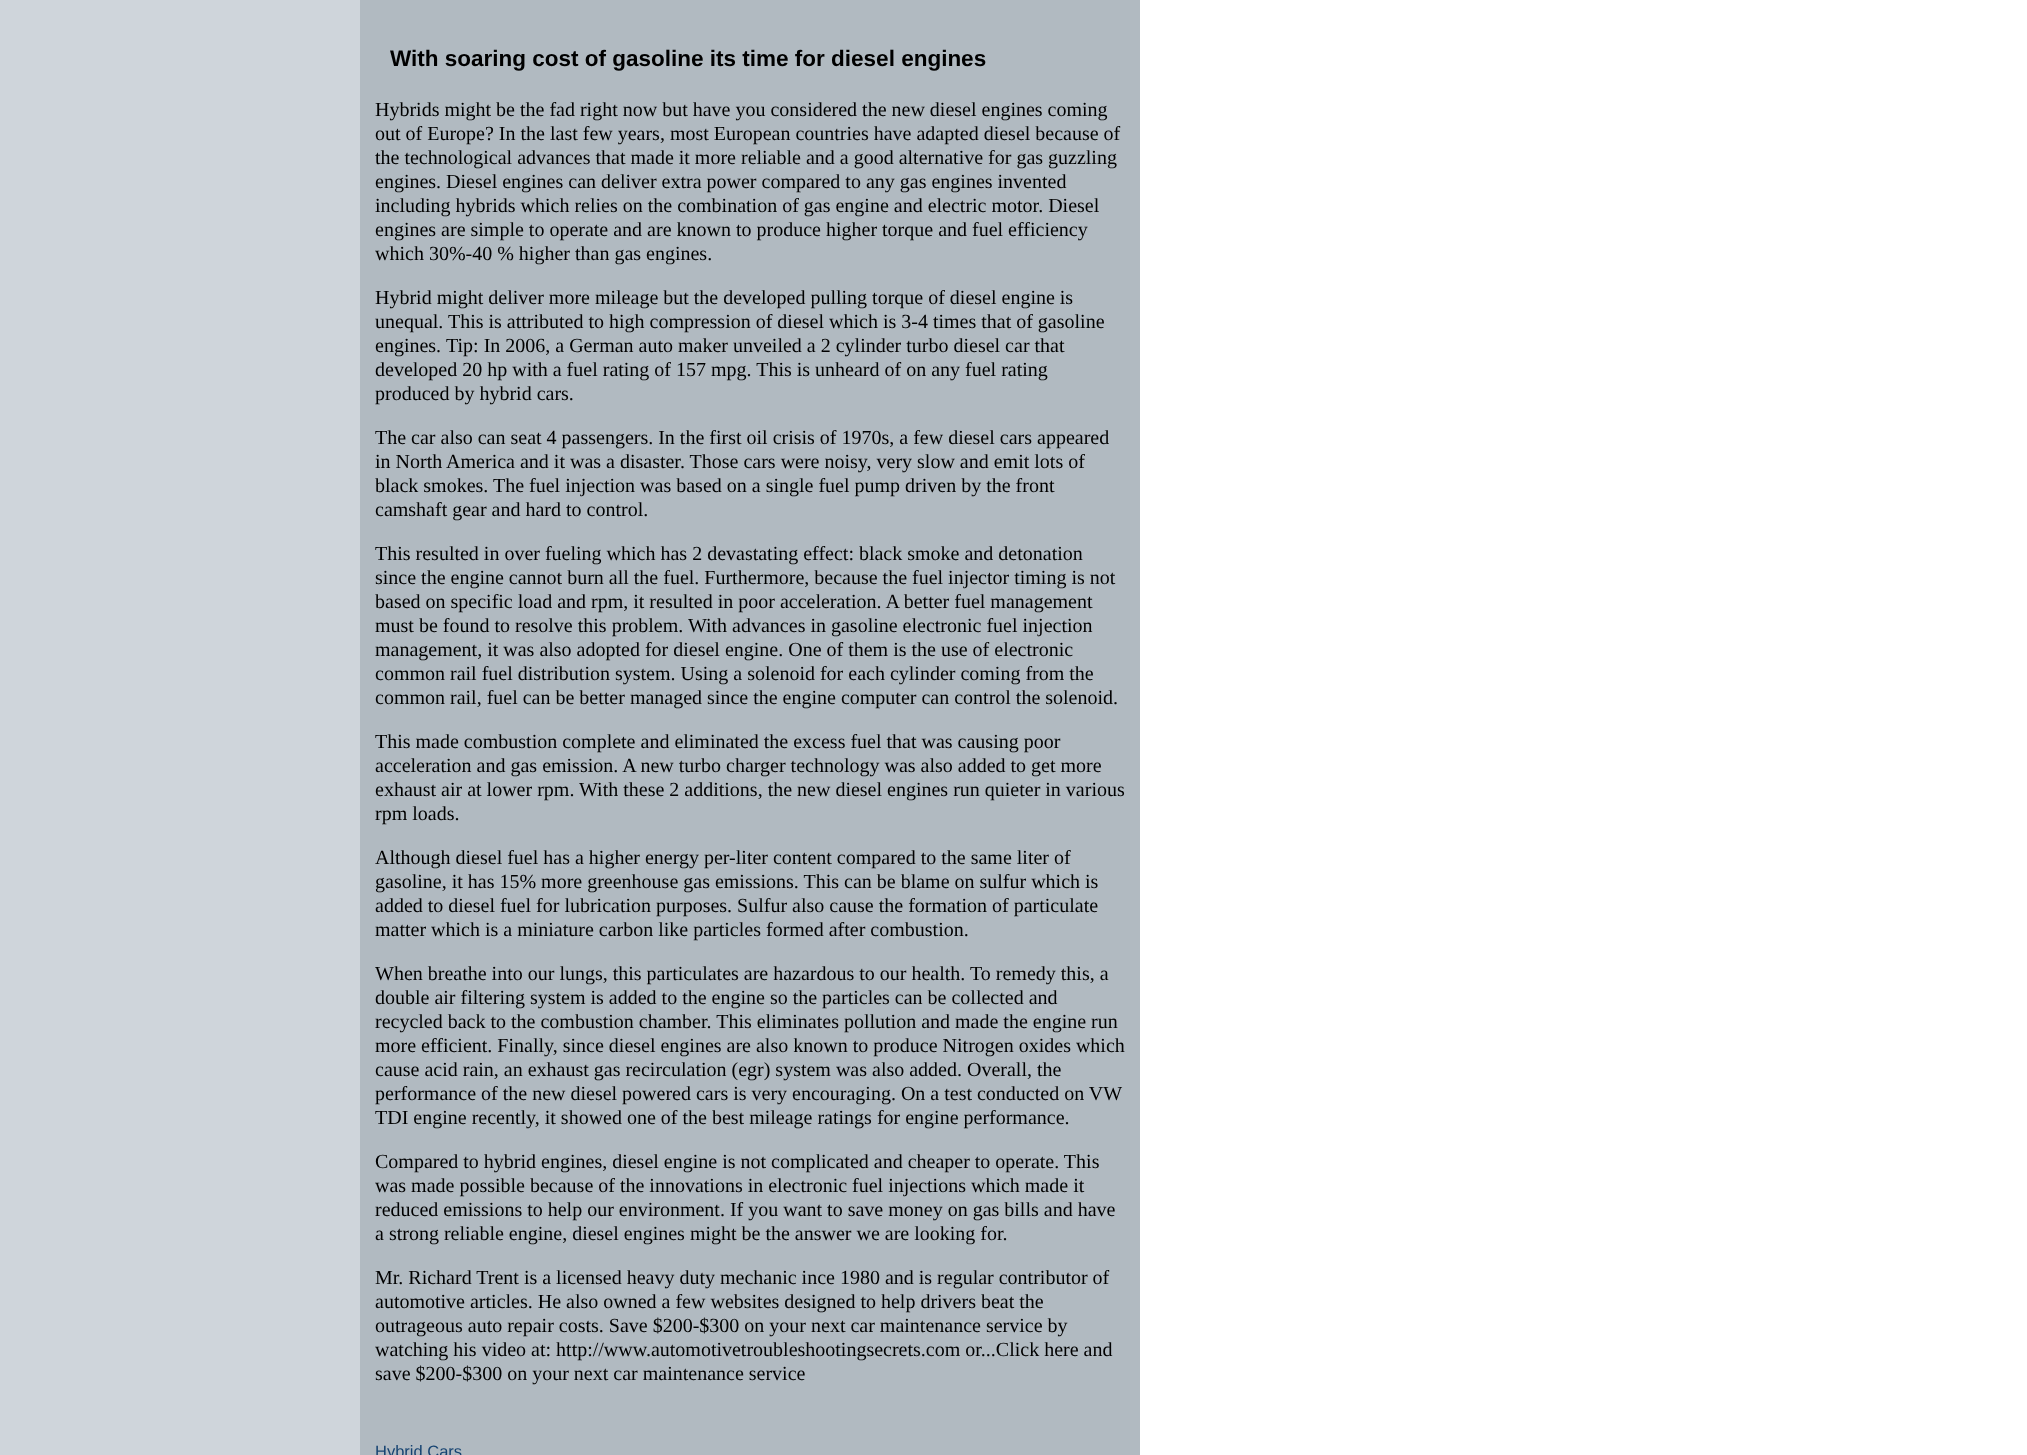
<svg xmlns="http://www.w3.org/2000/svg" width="2027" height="1455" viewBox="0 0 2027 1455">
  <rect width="100%" height="100%" fill="#fff"/>
  <path d="M360 0h780v1455H360z" fill="#b1bac1"/>
  <path d="M0 0h360v1455H0z" fill="#cfd5db"/>
  <text x="390" y="66" font-family="Liberation Sans" font-size="22.5" font-weight="bold" fill="#000">With soaring cost of gasoline its time for diesel engines</text>
  <g font-family="Liberation Serif" font-size="20" fill="#000">
    <text x="375" y="116">Hybrids might be the fad right now but have you considered the new diesel engines coming</text>
    <text x="375" y="140">out of Europe? In the last few years, most European countries have adapted diesel because of</text>
    <text x="375" y="164">the technological advances that made it more reliable and a good alternative for gas guzzling</text>
    <text x="375" y="188">engines. Diesel engines can deliver extra power compared to any gas engines invented</text>
    <text x="375" y="212">including hybrids which relies on the combination of gas engine and electric motor. Diesel</text>
    <text x="375" y="236">engines are simple to operate and are known to produce higher torque and fuel efficiency</text>
    <text x="375" y="260">which 30%-40 % higher than gas engines.</text>
    <text x="375" y="304">Hybrid might deliver more mileage but the developed pulling torque of diesel engine is</text>
    <text x="375" y="328">unequal. This is attributed to high compression of diesel which is 3-4 times that of gasoline</text>
    <text x="375" y="352">engines.</text>
    <text x="446" y="352">Tip: In 2006, a German auto maker unveiled a 2 cylinder turbo diesel car that</text>
    <text x="375" y="376">developed 20 hp with a fuel rating of 157 mpg. This is unheard of on any fuel rating</text>
    <text x="375" y="400">produced by hybrid cars.</text>
    <text x="375" y="444">The car also can seat 4 passengers. In the first oil crisis of 1970s, a few diesel cars appeared</text>
    <text x="375" y="468">in North America and it was a disaster. Those cars were noisy, very slow and emit lots of</text>
    <text x="375" y="492">black smokes. The fuel injection was based on a single fuel pump driven by the front</text>
    <text x="375" y="516">camshaft gear and hard to control.</text>
    <text x="375" y="560">This resulted in over fueling which has 2 devastating effect: black smoke and detonation</text>
    <text x="375" y="584">since the engine cannot burn all the fuel. Furthermore, because the fuel injector timing is not</text>
    <text x="375" y="608">based on specific load and rpm, it resulted in poor acceleration. A better fuel management</text>
    <text x="375" y="632">must be found to resolve this problem. With advances in gasoline electronic fuel injection</text>
    <text x="375" y="656">management, it was also adopted for diesel engine. One of them is the use of electronic</text>
    <text x="375" y="680">common rail fuel distribution system. Using a solenoid for each cylinder coming from the</text>
    <text x="375" y="704">common rail, fuel can be better managed since the engine computer can control the solenoid.</text>
    <text x="375" y="748">This made combustion complete and eliminated the excess fuel that was causing poor</text>
    <text x="375" y="772">acceleration and gas emission. A new turbo charger technology was also added to get more</text>
    <text x="375" y="796">exhaust air at lower rpm. With these 2 additions, the new diesel engines run quieter in various</text>
    <text x="375" y="820">rpm loads.</text>
    <text x="375" y="864">Although diesel fuel has a higher energy per-liter content compared to the same liter of</text>
    <text x="375" y="888">gasoline, it has 15% more greenhouse gas emissions. This can be blame on sulfur which is</text>
    <text x="375" y="912">added to diesel fuel for lubrication purposes. Sulfur also cause the formation of particulate</text>
    <text x="375" y="936">matter which is a miniature carbon like particles formed after combustion.</text>
    <text x="375" y="980">When breathe into our lungs, this particulates are hazardous to our health. To remedy this, a</text>
    <text x="375" y="1004">double air filtering system is added to the engine so the particles can be collected and</text>
    <text x="375" y="1028">recycled back to the combustion chamber. This eliminates pollution and made the engine run</text>
    <text x="375" y="1052">more efficient. Finally, since diesel engines are also known to produce Nitrogen oxides which</text>
    <text x="375" y="1076">cause acid rain, an exhaust gas recirculation (egr) system was also added. Overall, the</text>
    <text x="375" y="1100">performance of the new diesel powered cars is very encouraging. On a test conducted on VW</text>
    <text x="375" y="1124">TDI engine recently, it showed one of the best mileage ratings for engine performance.</text>
    <text x="375" y="1168">Compared to hybrid engines, diesel engine is not complicated and cheaper to operate. This</text>
    <text x="375" y="1192">was made possible because of the innovations in electronic fuel injections which made it</text>
    <text x="375" y="1216">reduced emissions to help our environment. If you want to save money on gas bills and have</text>
    <text x="375" y="1240">a strong reliable engine, diesel engines might be the answer we are looking for.</text>
    <text x="375" y="1284">Mr. Richard Trent is a licensed heavy duty mechanic ince 1980 and is regular contributor of</text>
    <text x="375" y="1308">automotive articles. He also owned a few websites designed to help drivers beat the</text>
    <text x="375" y="1332">outrageous auto repair costs. Save $200-$300 on your next car maintenance service by</text>
    <text x="375" y="1356">watching his video at: http://www.automotivetroubleshootingsecrets.com or...Click here and</text>
    <text x="375" y="1380">save $200-$300 on your next car maintenance service</text>
  </g>
  <text x="375" y="1457" font-family="Liberation Sans" font-size="16.5" fill="#164371">Hybrid Cars</text>
</svg>
